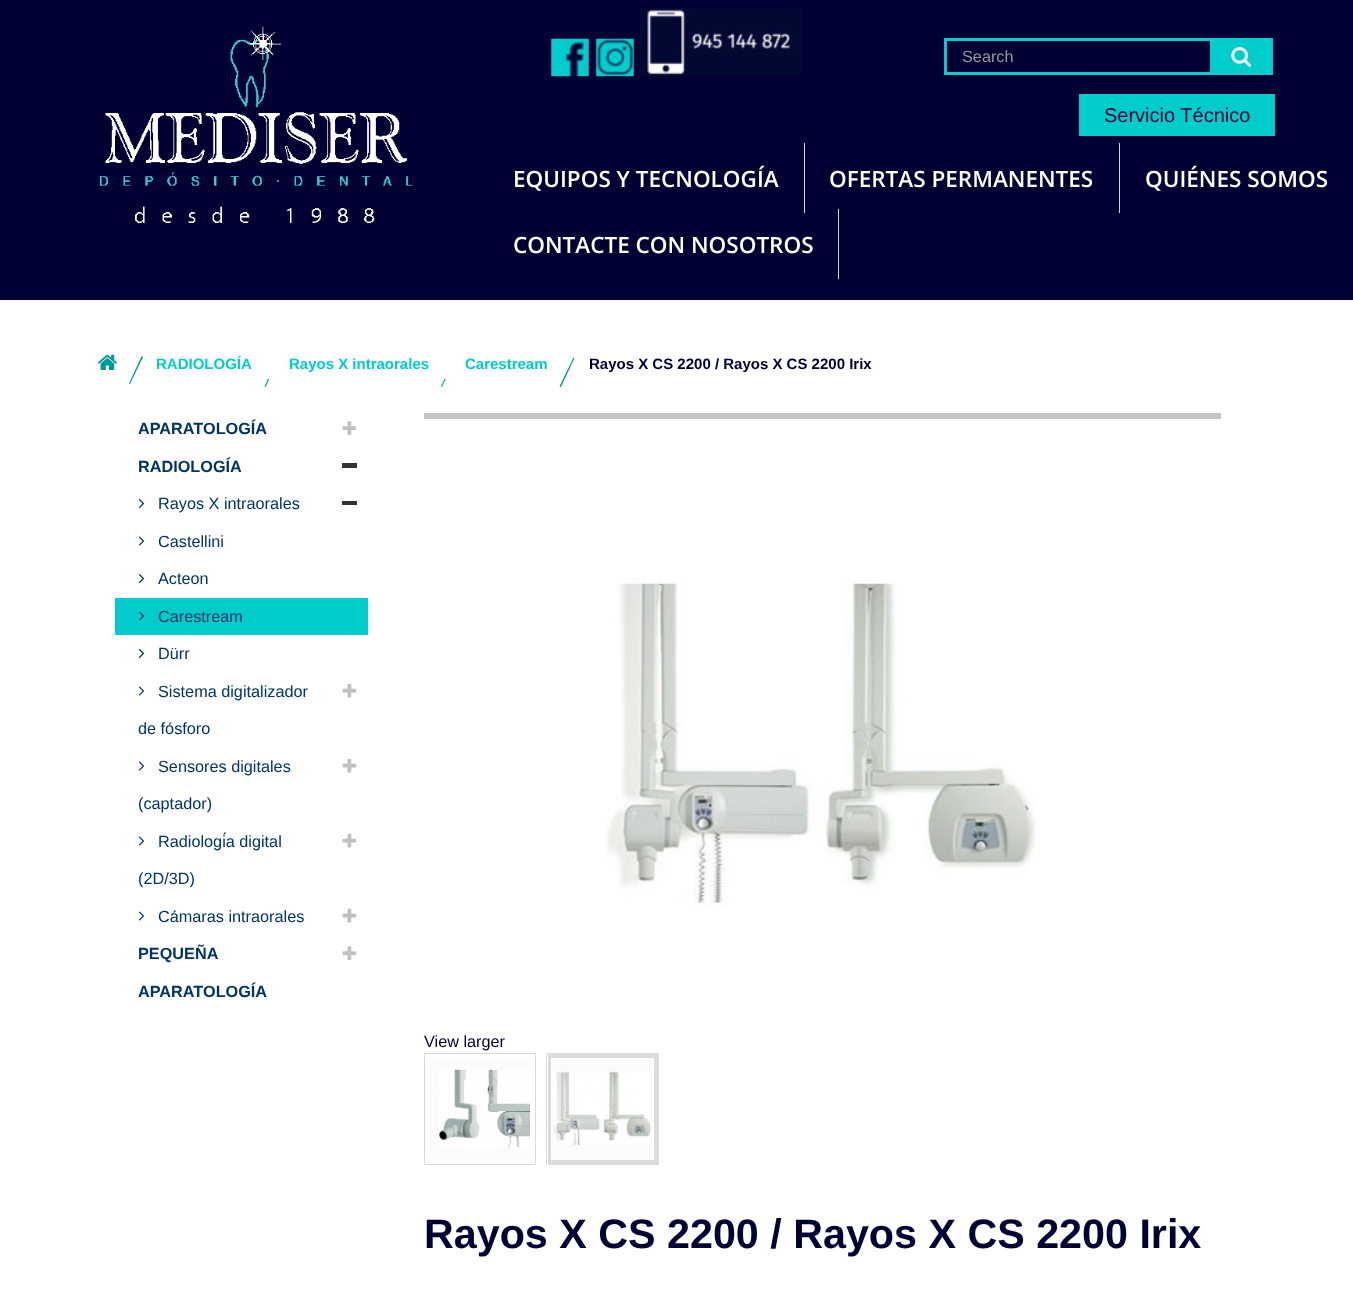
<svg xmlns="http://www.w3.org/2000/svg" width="1353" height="1315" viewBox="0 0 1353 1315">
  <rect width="100%" height="100%" fill="#fff"/>
  <path d="M0 0h1353v300H0z" fill="#003"/>
  <image x="100" y="26" width="313" height="197" href="img/1.png"/>
  <image x="551" y="38" width="38" height="39" href="img/2.png"/>
  <image x="596" y="38" width="38" height="39" href="img/3.png"/>
  <image x="640" y="7" width="163" height="69" href="img/4.png"/>
  <path d="M945.5 39.5h326v34H945.5z" fill="none" stroke="#0cc" stroke-width="3"/>
  <path d="M1210 41h60v31H1210z" fill="#0cc"/>
  <image x="1231" y="47" width="20" height="20" href="img/5.png"/>
  <path d="M1079 94h196v42H1079z" fill="#0cc"/>
  <path d="M804 143h1v70H804z" fill="#d6d4d4"/>
  <path d="M1119 143h1v70H1119z" fill="#d6d4d4"/>
  <path d="M838 209h1v70H838z" fill="#d6d4d4"/>
  <image x="97" y="354" width="20" height="16" href="img/6.png"/>
  <path d="M141.5 356.5L143 357L130 384L129 383.5Z" fill="#099"/>
  <path d="M278 357.5L279.5 358L265.5 387L264.5 386.5Z" fill="#099"/>
  <path d="M268 357h12v22H268z" fill="#fff"/>
  <path d="M454.5 357.5L455.5 358L442 387L441 386.5Z" fill="#099"/>
  <path d="M444 357h12v22H444z" fill="#fff"/>
  <path d="M573.5 357.5L574.5 358L561 387L559.5 386.5Z" fill="#099"/>
  <image x="342" y="421" width="15" height="14" href="img/7.png"/>
  <path d="M342 463h15v5H342z" fill="#333"/>
  <image x="138" y="499" width="7" height="9" href="img/8.png"/>
  <path d="M342 501h15v4H342z" fill="#333"/>
  <image x="138" y="536" width="7" height="10" href="img/9.png"/>
  <image x="138" y="574" width="7" height="9" href="img/8.png"/>
  <path d="M115 598h253v37H115z" fill="#0cc"/>
  <image x="138" y="611" width="7" height="10" href="img/10.png"/>
  <image x="138" y="649" width="7" height="9" href="img/8.png"/>
  <image x="138" y="686" width="7" height="10" href="img/9.png"/>
  <image x="342" y="683" width="15" height="15" href="img/11.png"/>
  <image x="138" y="761" width="7" height="10" href="img/9.png"/>
  <image x="342" y="758" width="15" height="15" href="img/11.png"/>
  <image x="138" y="836" width="7" height="10" href="img/9.png"/>
  <image x="342" y="833" width="15" height="15" href="img/11.png"/>
  <image x="138" y="911" width="7" height="10" href="img/9.png"/>
  <image x="342" y="908" width="15" height="15" href="img/11.png"/>
  <image x="342" y="946" width="15" height="14" href="img/7.png"/>
  <path d="M424 413h797v6H424z" fill="#c4c4c4"/>
  <image x="604" y="578" width="433" height="329" href="img/12.png"/>
  <path d="M424.5 1053.5h111v111H424.5z" fill="none" stroke="#dbdbdb"/>
  <path d="M430 1059h100v100H430z" fill="#fbfbfb"/>
  <image x="439" y="1069" width="91" height="79" href="img/13.png"/>
  <path d="M546.5 1053.5h112v111H546.5z" fill="none" stroke="#dbdbdb"/>
  <path d="M552 1059h101v100H552z" fill="#fbfbfb"/>
  <path d="M550 1056h106v106H550z" fill="none" stroke="#dbdbdb" stroke-width="4"/>
  <path d="M551.5 1058.5h102v101H551.5z" fill="none" stroke="#fff"/>
  <image x="553" y="1071" width="98" height="74" href="img/14.png"/>
  <text x="962" y="62" font-family="Liberation Sans" font-size="16.25" fill="#999">Search</text>
  <text x="1104" y="122" font-family="Liberation Sans" font-size="20" fill="#000034">Servicio Técnico</text>
  <g font-family="Open Sans" font-size="22.5" font-weight="600" fill="#fff">
    <text x="513" y="187">EQUIPOS Y TECNOLOGÍA</text>
    <text x="829" y="187">OFERTAS PERMANENTES</text>
    <text x="1145" y="187">QUIÉNES SOMOS</text>
    <text x="513" y="253">CONTACTE CON NOSOTROS</text>
  </g>
  <g font-family="Liberation Sans" font-size="15" font-weight="bold" fill="#0cc">
    <text x="156" y="369">RADIOLOGÍA</text>
    <text x="289" y="369">Rayos X intraorales</text>
    <text x="465" y="369">Carestream</text>
  </g>
  <text x="589" y="369" font-family="Liberation Sans" font-size="15" font-weight="bold" fill="#000034">Rayos X CS 2200 / Rayos X CS 2200 Irix</text>
  <g font-family="Liberation Sans" font-size="16.25" font-weight="bold" fill="#036">
    <text x="138" y="434">APARATOLOGÍA</text>
    <text x="138" y="472">RADIOLOGÍA</text>
  </g>
  <g font-family="Liberation Sans" font-size="16.25" fill="#036">
    <text x="158" y="509">Rayos X intraorales</text>
    <text x="158" y="547">Castellini</text>
    <text x="158" y="584">Acteon</text>
    <text x="158" y="622">Carestream</text>
    <text x="158" y="659">Dürr</text>
    <text x="158" y="697">Sistema digitalizador</text>
    <text x="138" y="734">de fósforo</text>
    <text x="158" y="772">Sensores digitales</text>
    <text x="138" y="809">(captador)</text>
    <text x="158" y="847">Radiología digital</text>
    <text x="138" y="884">(2D/3D)</text>
    <text x="158" y="922">Cámaras intraorales</text>
  </g>
  <g font-family="Liberation Sans" font-size="16.25" font-weight="bold" fill="#036">
    <text x="138" y="959">PEQUEÑA</text>
    <text x="138" y="997">APARATOLOGÍA</text>
  </g>
  <text x="424" y="1047" font-family="Liberation Sans" font-size="16.25" fill="#000034">View larger</text>
  <text x="424" y="1248" font-family="Liberation Sans" font-size="41.25" font-weight="bold" fill="#000034">Rayos X CS 2200 / Rayos X CS 2200 Irix</text>
</svg>
